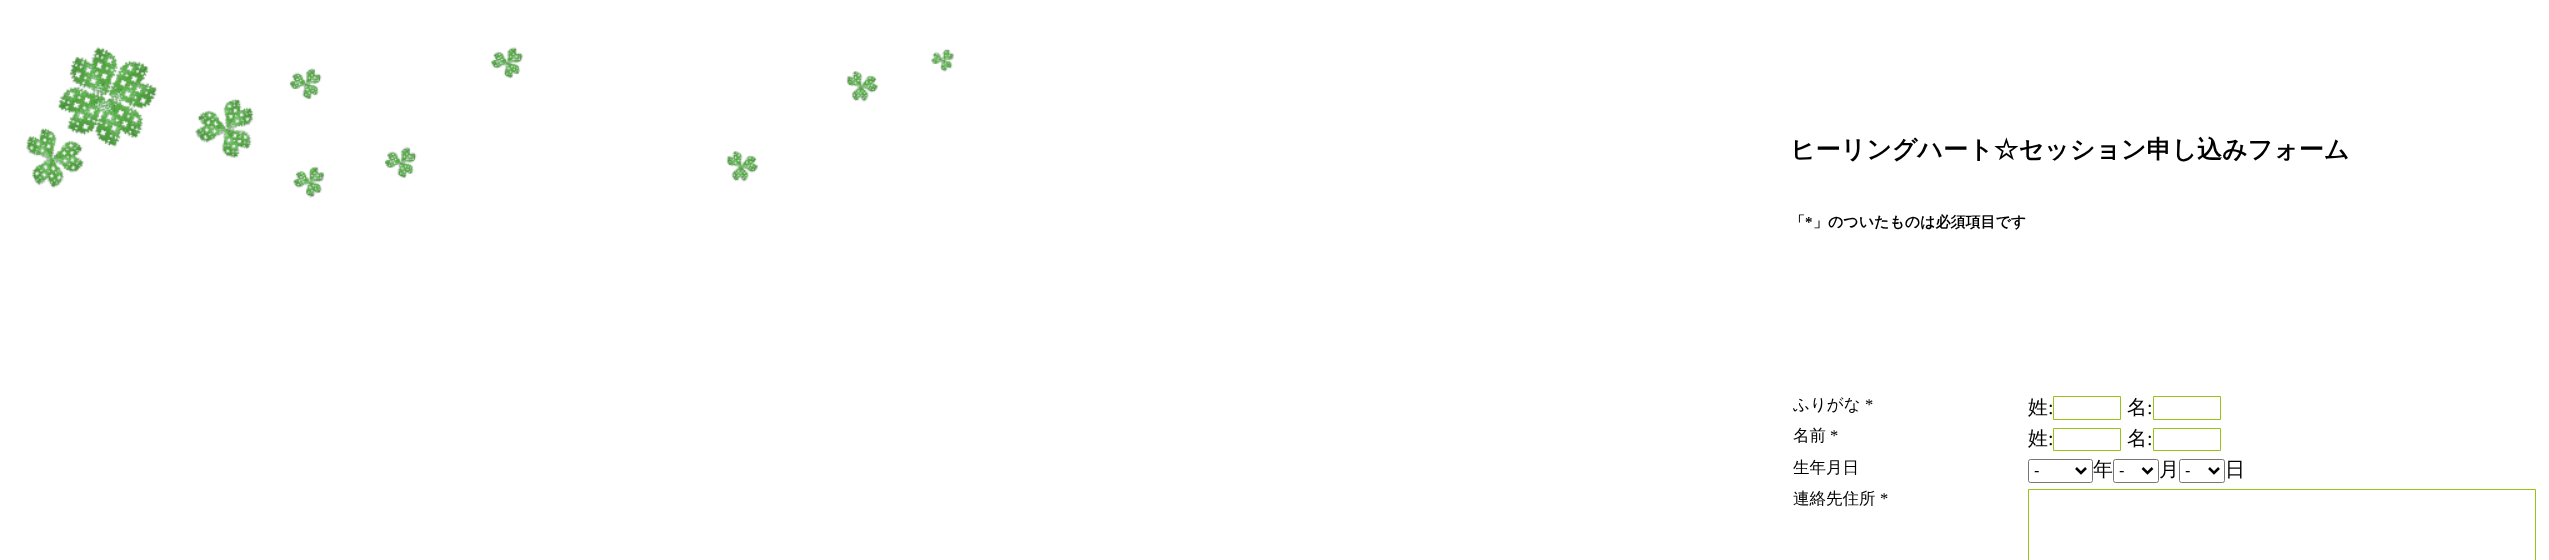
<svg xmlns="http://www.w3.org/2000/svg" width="2549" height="560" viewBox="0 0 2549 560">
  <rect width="100%" height="100%" fill="#fff"/>
  <image x="26" y="47" width="928" height="151" href="img/1.png"/>
  <path d="M2053.5 396.5h67v23H2053.5z" fill="none" stroke="#96c316"/>
  <path d="M2153.5 396.5h67v23H2153.5z" fill="none" stroke="#96c316"/>
  <path d="M2053.5 428.5h67v22H2053.5z" fill="none" stroke="#96c316"/>
  <path d="M2153.5 428.5h67v22H2153.5z" fill="none" stroke="#96c316"/>
  <rect x="2028.5" y="459.5" width="64" height="23" rx="2" fill="none" stroke="#767676"/>
  <path d="M2076 468L2081 473L2086 468" fill="none" stroke="#000" stroke-width="2.5"/>
  <rect x="2113.5" y="459.5" width="45" height="23" rx="2" fill="none" stroke="#767676"/>
  <path d="M2142.5 468L2147.5 473L2152.5 468" fill="none" stroke="#000" stroke-width="2.5"/>
  <rect x="2179.5" y="459.5" width="45" height="23" rx="2" fill="none" stroke="#767676"/>
  <path d="M2209 468L2214 473L2219 468" fill="none" stroke="#000" stroke-width="2.5"/>
  <path d="M2028.5 489.5h507v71H2028.5z" fill="none" stroke="#96c316"/>
  <text x="1790" y="158" font-family="WenQuanYi Zen Hei" font-size="25" font-weight="bold" fill="#000">ヒーリングハート☆セッション申し込みフォーム</text>
  <text x="1790" y="227" font-family="WenQuanYi Zen Hei" font-size="15" font-weight="bold" fill="#000">「</text>
  <text x="1805" y="227" font-family="Liberation Serif" font-size="15" font-weight="bold" fill="#000">*</text>
  <text x="1813" y="227" font-family="WenQuanYi Zen Hei" font-size="15" font-weight="bold" fill="#000">」のついたものは必須項目です</text>
  <text x="1793" y="410" font-family="WenQuanYi Zen Hei" font-size="16.5" font-weight="500" fill="#000">ふりがな</text>
  <text x="1865" y="410" font-family="Liberation Serif" font-size="16.5" fill="#000">*</text>
  <text x="2028" y="414" font-family="WenQuanYi Zen Hei" font-size="20" font-weight="500" fill="#000">姓</text>
  <text x="2048" y="414" font-family="Liberation Serif" font-size="20" fill="#000">:</text>
  <text x="2127" y="414" font-family="WenQuanYi Zen Hei" font-size="20" font-weight="500" fill="#000">名</text>
  <text x="2147" y="414" font-family="Liberation Serif" font-size="20" fill="#000">:</text>
  <text x="1793" y="441" font-family="WenQuanYi Zen Hei" font-size="16.5" font-weight="500" fill="#000">名前</text>
  <text x="1830" y="441" font-family="Liberation Serif" font-size="16.5" fill="#000">*</text>
  <text x="2028" y="445" font-family="WenQuanYi Zen Hei" font-size="20" font-weight="500" fill="#000">姓</text>
  <text x="2048" y="445" font-family="Liberation Serif" font-size="20" fill="#000">:</text>
  <text x="2127" y="445" font-family="WenQuanYi Zen Hei" font-size="20" font-weight="500" fill="#000">名</text>
  <text x="2147" y="445" font-family="Liberation Serif" font-size="20" fill="#000">:</text>
  <text x="1793" y="473" font-family="WenQuanYi Zen Hei" font-size="16.5" font-weight="500" fill="#000">生年月日</text>
  <text x="2034" y="476" font-family="Liberation Sans" font-size="16.5" fill="#000">-</text>
  <text x="2093" y="476" font-family="WenQuanYi Zen Hei" font-size="20" font-weight="500" fill="#000">年</text>
  <text x="2119" y="476" font-family="Liberation Sans" font-size="16.5" fill="#000">-</text>
  <text x="2159" y="476" font-family="WenQuanYi Zen Hei" font-size="20" font-weight="500" fill="#000">月</text>
  <text x="2185" y="476" font-family="Liberation Sans" font-size="16.5" fill="#000">-</text>
  <text x="2225" y="476" font-family="WenQuanYi Zen Hei" font-size="20" font-weight="500" fill="#000">日</text>
  <text x="1793" y="504" font-family="WenQuanYi Zen Hei" font-size="16.5" font-weight="500" fill="#000">連絡先住所</text>
  <text x="1880" y="504" font-family="Liberation Serif" font-size="16.5" fill="#000">*</text>
</svg>
